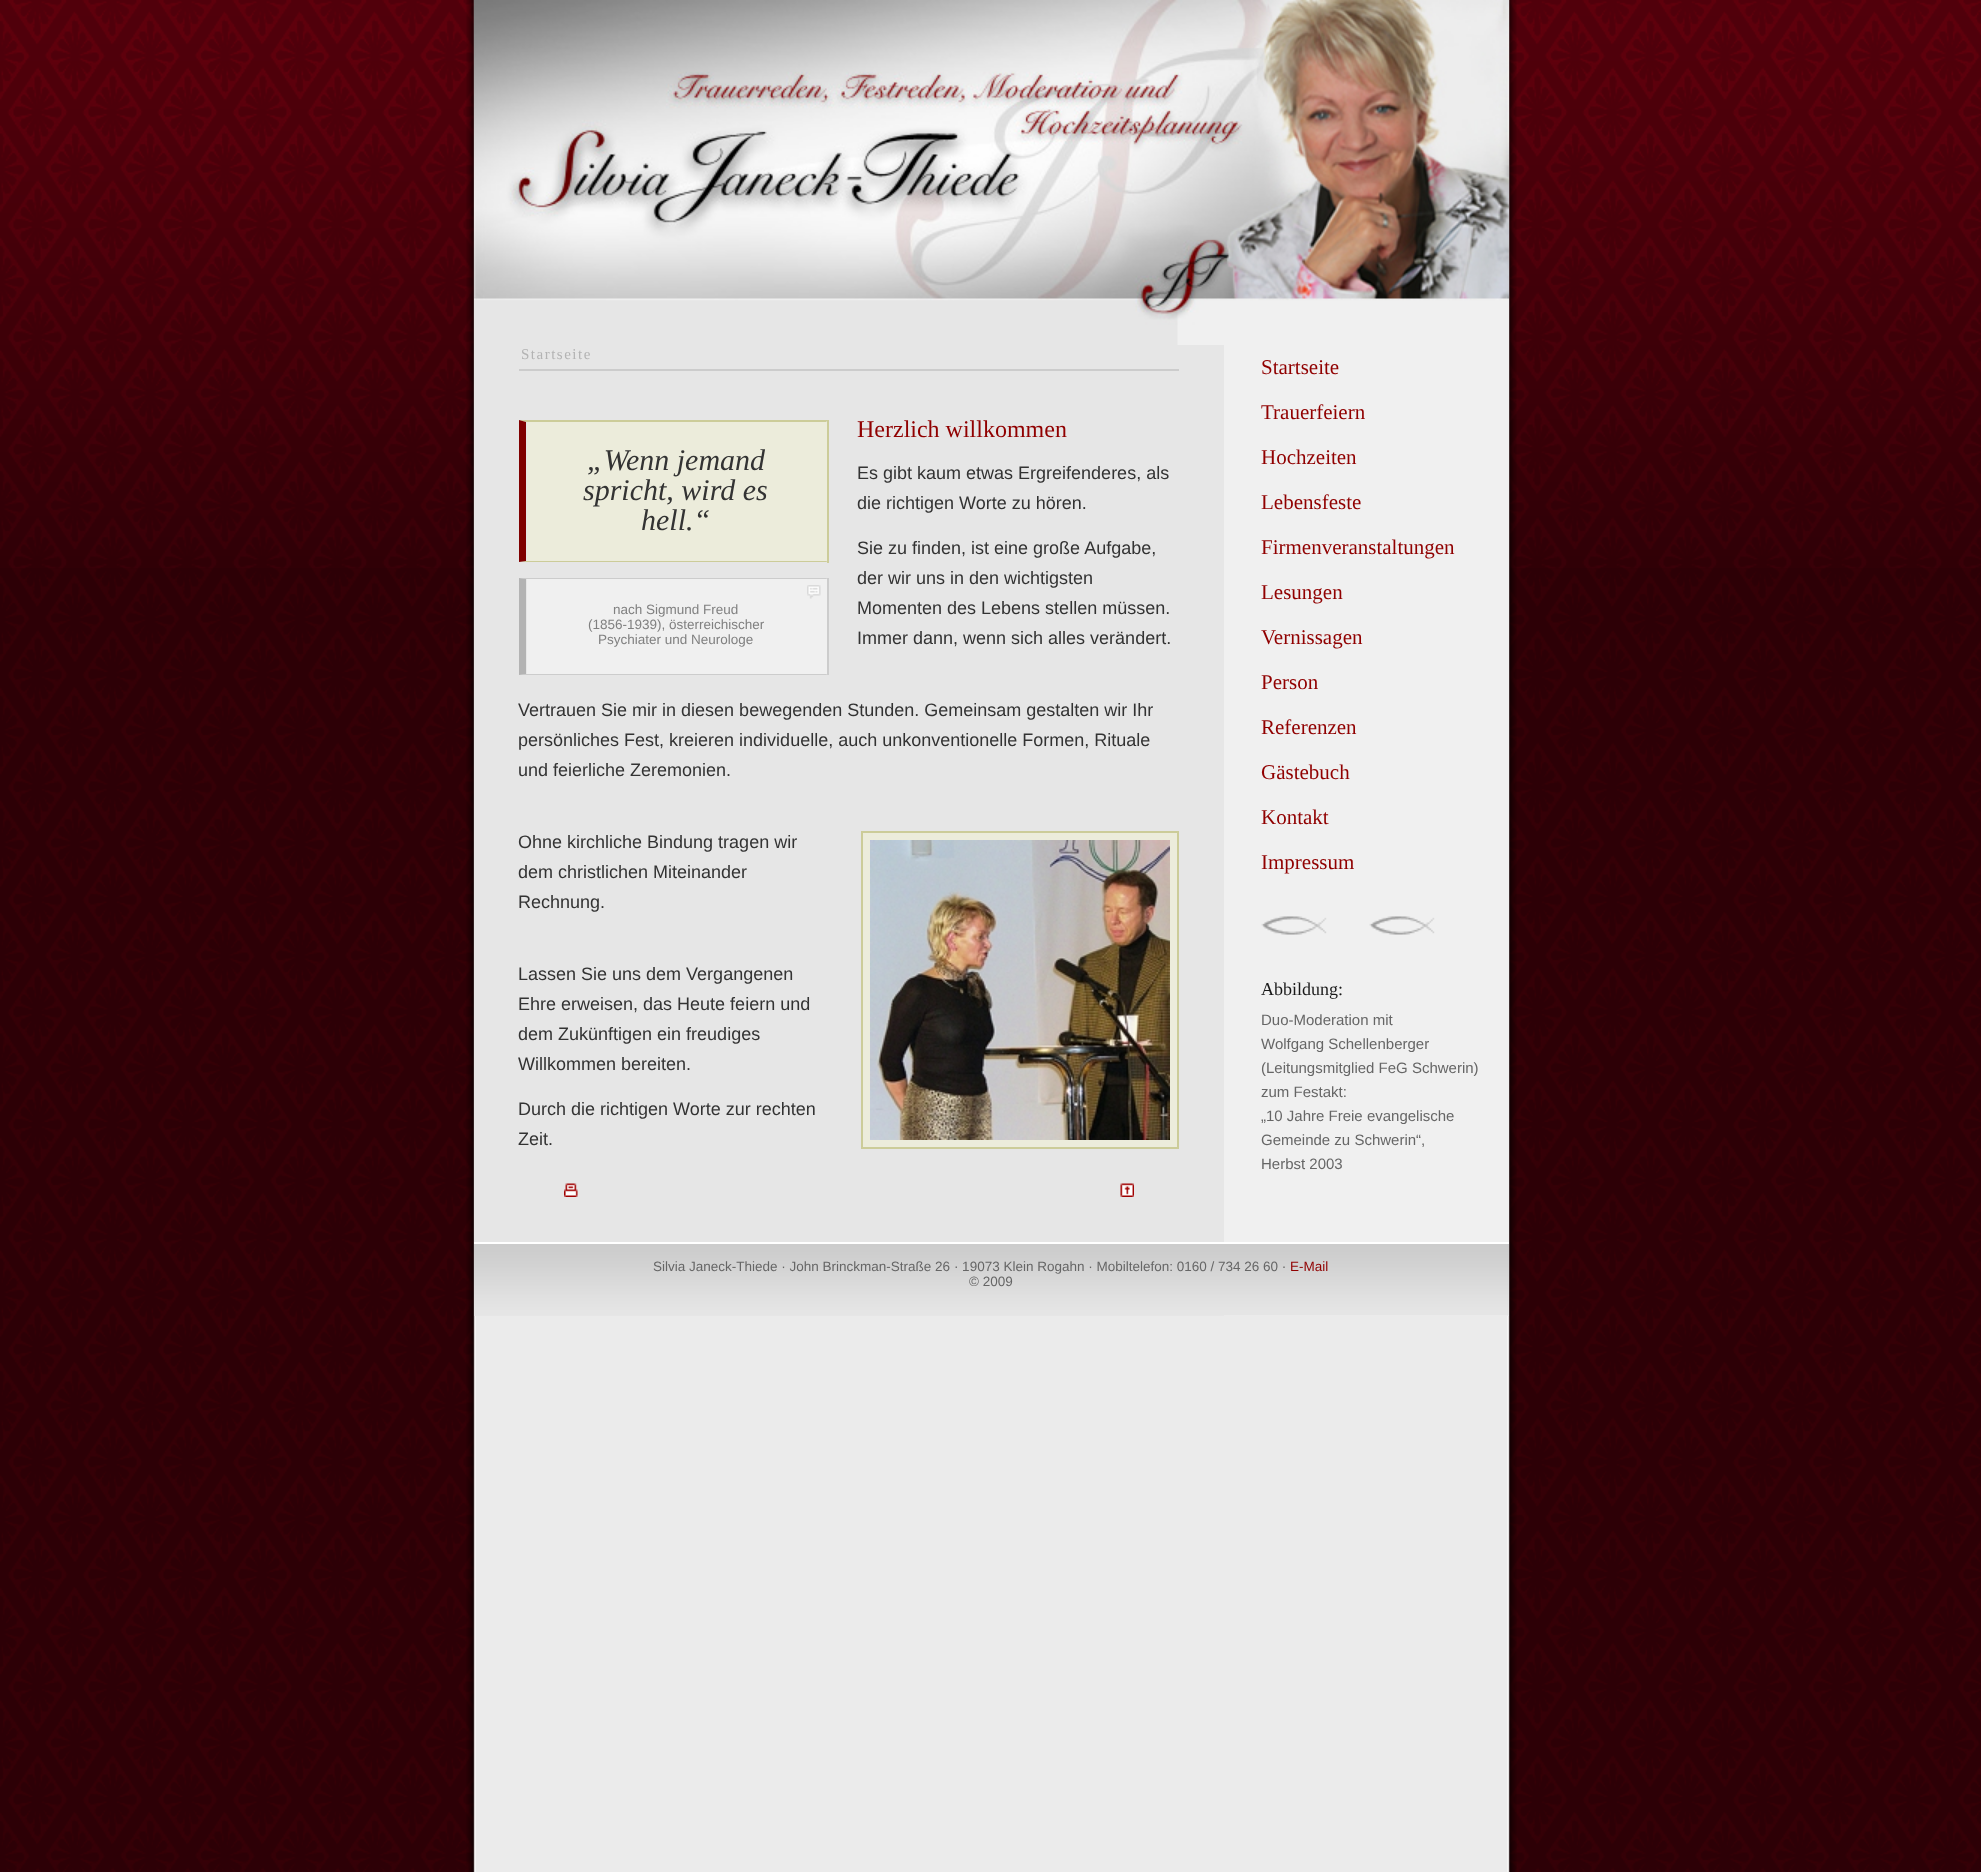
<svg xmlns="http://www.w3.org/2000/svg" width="1981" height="1872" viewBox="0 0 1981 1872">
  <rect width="100%" height="100%" fill="#fff"/>
  <image x="0" y="568" width="1981" height="1304" href="img/1.png"/>
  <image x="0" y="0" width="1981" height="568" href="img/2.png"/>
  <image x="466" y="0" width="1051" height="1872" href="img/3.png"/>
  <path d="M474 345h750v971H474z" fill="#e6e6e6"/>
  <path d="M1224 345h285v971H1224z" fill="#f0f0f0"/>
  <image x="474" y="0" width="1035" height="345" href="img/4.png"/>
  <path d="M519 369h660v2H519z" fill="#ccc"/>
  <path d="M527 422h300v139H527z" fill="#ececdb"/>
  <path d="M519 420H828L826 422H526Z" fill="#cc9"/>
  <path d="M827 420h2v143H827z" fill="#cc9"/>
  <path d="M828 562H519L526 561H826Z" fill="#cc9"/>
  <path d="M519 562V420L526 422V561Z" fill="#800000"/>
  <path d="M527 579h300v95H527z" fill="#f0f0f0"/>
  <image x="807" y="585" width="14" height="14" href="img/5.png"/>
  <path d="M519 578H828L826 579H526Z" fill="#ccc"/>
  <path d="M827 578h2v97H827z" fill="#ccc"/>
  <path d="M828 675H519L526 674H826Z" fill="#ccc"/>
  <path d="M519 675V578L526 579V674Z" fill="#b3b3b3"/>
  <path d="M862 832h316v316H862z" fill="#ececdb" stroke="#cc9" stroke-width="2"/>
  <image x="870" y="840" width="300" height="300" href="img/6.png"/>
  <image x="564" y="1183" width="14" height="14" href="img/7.png"/>
  <image x="1120" y="1183" width="14" height="14" href="img/8.png"/>
  <image x="1261" y="916" width="66" height="19" href="img/9.png"/>
  <image x="1369" y="916" width="66" height="19" href="img/10.png"/>
  <image x="474" y="1244" width="1035" height="72" href="img/11.png"/>
  <path d="M474 1242h1035v2H474z" fill="#fff"/>
  <text x="521" y="359" font-family="Liberation Serif" font-size="15" letter-spacing="1.5" fill="#b3b3b3">Startseite</text>
  <text x="857" y="437" font-family="Liberation Serif" font-size="24" fill="#900000">Herzlich willkommen</text>
  <g font-family="Liberation Serif" font-size="30" font-style="italic" fill="#333">
    <text x="587" y="470">„Wenn jemand</text>
    <text x="583" y="500">spricht, wird es</text>
    <text x="641" y="530">hell.“</text>
  </g>
  <g font-family="Liberation Sans" font-size="18" fill="#333">
    <text x="857" y="479">Es gibt kaum etwas Ergreifenderes, als</text>
    <text x="857" y="509">die richtigen Worte zu hören.</text>
  </g>
  <g font-family="Liberation Sans" font-size="13.5" fill="#808080">
    <text x="613" y="614">nach Sigmund Freud</text>
    <text x="588" y="629">(1856-1939), österreichischer</text>
    <text x="598" y="644">Psychiater und Neurologe</text>
  </g>
  <g font-family="Liberation Sans" font-size="18" fill="#333">
    <text x="857" y="554">Sie zu finden, ist eine große Aufgabe,</text>
    <text x="857" y="584">der wir uns in den wichtigsten</text>
    <text x="857" y="614">Momenten des Lebens stellen müssen.</text>
    <text x="857" y="644">Immer dann, wenn sich alles verändert.</text>
    <text x="518" y="716">Vertrauen Sie mir in diesen bewegenden Stunden. Gemeinsam gestalten wir Ihr</text>
    <text x="518" y="746">persönliches Fest, kreieren individuelle, auch unkonventionelle Formen, Rituale</text>
    <text x="518" y="776">und feierliche Zeremonien.</text>
    <text x="518" y="848">Ohne kirchliche Bindung tragen wir</text>
    <text x="518" y="878">dem christlichen Miteinander</text>
    <text x="518" y="908">Rechnung.</text>
    <text x="518" y="980">Lassen Sie uns dem Vergangenen</text>
    <text x="518" y="1010">Ehre erweisen, das Heute feiern und</text>
    <text x="518" y="1040">dem Zukünftigen ein freudiges</text>
    <text x="518" y="1070">Willkommen bereiten.</text>
    <text x="518" y="1115">Durch die richtigen Worte zur rechten</text>
    <text x="518" y="1145">Zeit.</text>
  </g>
  <g font-family="Liberation Serif" font-size="21" fill="#900000">
    <text x="1261" y="374">Startseite</text>
    <text x="1261" y="419">Trauerfeiern</text>
    <text x="1261" y="464">Hochzeiten</text>
    <text x="1261" y="509">Lebensfeste</text>
    <text x="1261" y="554">Firmenveranstaltungen</text>
    <text x="1261" y="599">Lesungen</text>
    <text x="1261" y="644">Vernissagen</text>
    <text x="1261" y="689">Person</text>
    <text x="1261" y="734">Referenzen</text>
    <text x="1261" y="779">Gästebuch</text>
    <text x="1261" y="824">Kontakt</text>
    <text x="1261" y="869">Impressum</text>
  </g>
  <text x="1261" y="995" font-family="Liberation Serif" font-size="18" fill="#191919">Abbildung:</text>
  <g font-family="Liberation Sans" font-size="15" fill="#666">
    <text x="1261" y="1025">Duo-Moderation mit</text>
    <text x="1261" y="1049">Wolfgang Schellenberger</text>
    <text x="1261" y="1073">(Leitungsmitglied FeG Schwerin)</text>
    <text x="1261" y="1097">zum Festakt:</text>
    <text x="1261" y="1121">„10 Jahre Freie evangelische</text>
    <text x="1261" y="1145">Gemeinde zu Schwerin“,</text>
    <text x="1261" y="1169">Herbst 2003</text>
  </g>
  <text x="653" y="1271" font-family="Liberation Sans" font-size="13.5" fill="#666">Silvia Janeck-Thiede · John Brinckman-Straße 26 · 19073 Klein Rogahn · Mobiltelefon: 0160 / 734 26 60 ·</text>
  <text x="1290" y="1271" font-family="Liberation Sans" font-size="13.5" fill="#900000">E-Mail</text>
  <text x="969" y="1286" font-family="Liberation Sans" font-size="13.5" fill="#666">© 2009</text>
</svg>
